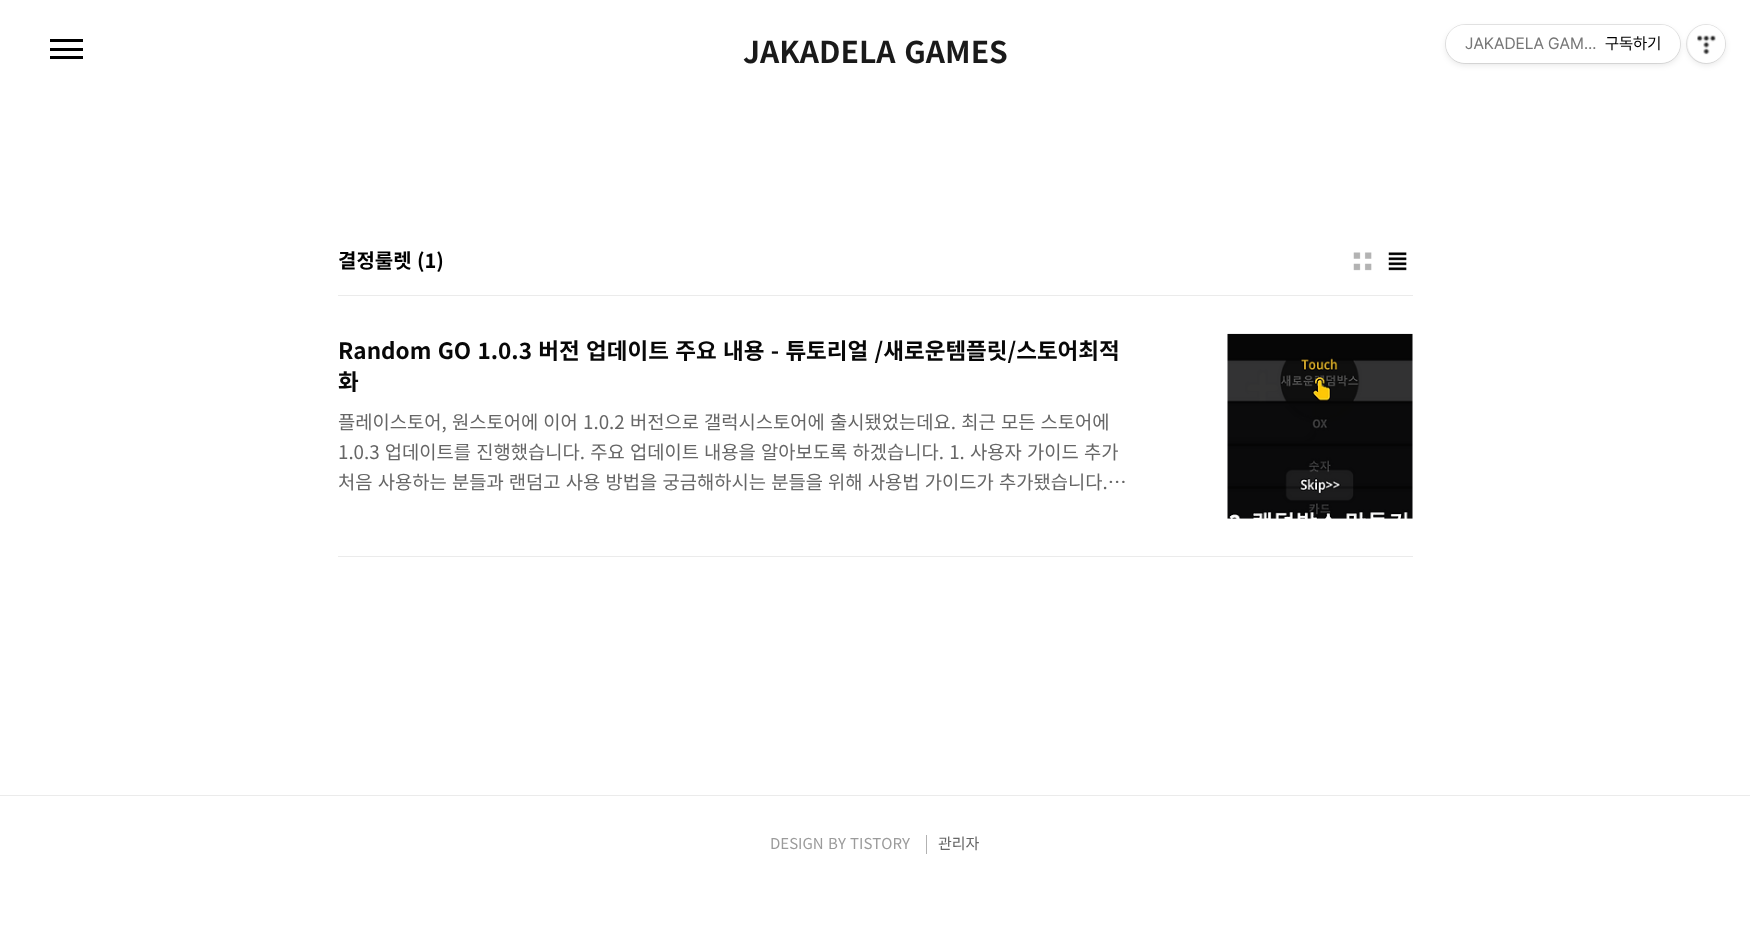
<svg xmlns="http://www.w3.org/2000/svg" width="1750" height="939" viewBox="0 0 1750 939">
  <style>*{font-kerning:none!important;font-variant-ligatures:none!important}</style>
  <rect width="100%" height="100%" fill="#fff"/>
  <path d="M50 39h33v3H50z" fill="#000"/>
  <path d="M50 48h33v3H50z" fill="#000"/>
  <path d="M50 56h33v3H50z" fill="#000"/>
  <image x="1689" y="50" width="3" height="5" href="img/1.png"/>
  <path d="M338 295h1075v1H338z" fill="#ebebeb"/>
  <image x="1353" y="252" width="19" height="19" href="img/2.png"/>
  <image x="1388" y="252" width="19" height="19" href="img/3.png"/>
  <path d="M338 556h1075v1H338z" fill="#ebebeb"/>
  <image x="1227" y="333" width="186" height="186" href="img/4.png"/>
  <path d="M0 795h1750v1H0z" fill="#ebebeb"/>
  <path d="M926 835h1v19H926z" fill="#b2b2b2"/>
  <rect x="1688" y="28" width="37" height="37" rx="18.5" fill="#0000001a" filter="blur(3px)"/>
  <circle cx="1706" cy="44" r="19.5" fill="none" stroke="#0000001a"/>
  <rect x="1688" y="25" width="37" height="38" rx="18.5" fill="#fff"/>
  <rect x="1446" y="28" width="234" height="37" rx="18.5" fill="#0000001a" filter="blur(3px)"/>
  <rect x="1445.5" y="24.5" width="235" height="39" rx="19.5" fill="none" stroke="#0000001a"/>
  <rect x="1446" y="25" width="234" height="38" rx="19" fill="#fff"/>
  <image x="1697" y="35" width="19" height="20" href="img/5.png"/>
  <text x="743" y="63" word-spacing="2" font-family="Noto Sans KR" font-size="30" font-weight="bold" fill="#1a1a1a">JAKADELA GAMES</text>
  <g font-family="Noto Sans KR" font-size="20" font-weight="bold" fill="#000">
    <text x="338" y="268">결정룰렛</text>
    <text x="417" y="268">(1)</text>
  </g>
  <g font-family="Noto Sans KR" font-size="22.5" font-weight="bold" fill="#080808">
    <text x="338" y="359" word-spacing="1.25">Random GO 1.0.3 버전 업데이트 주요 내용 - 튜토리얼 /새로운템플릿/스토어최적</text>
    <text x="338" y="390">화</text>
  </g>
  <g font-family="Noto Sans KR" font-size="18.75" fill="#666">
    <text x="338" y="429" word-spacing="1">플레이스토어, 원스토어에 이어 1.0.2 버전으로 갤럭시스토어에 출시됐었는데요. 최근 모든 스토어에</text>
    <text x="338" y="459" word-spacing="1">1.0.3 업데이트를 진행했습니다. 주요 업데이트 내용을 알아보도록 하겠습니다. 1. 사용자 가이드 추가</text>
    <text x="338" y="489" word-spacing="1">처음 사용하는 분들과 랜덤고 사용 방법을 궁금해하시는 분들을 위해 사용법 가이드가 추가됐습니다.…</text>
  </g>
  <g font-family="Noto Sans KR" font-size="15" fill="#9b9b9b">
    <text x="770" y="849" word-spacing="1">DESIGN BY</text>
    <text x="850" y="849">TISTORY</text>
  </g>
  <text x="938" y="849" font-family="Noto Sans KR" font-size="15" fill="#666">관리자</text>
  <text x="1465" y="49" font-family="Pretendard" font-size="16.25" fill="#777">JAKADELA GAM…</text>
  <text x="1605" y="49" font-family="Pretendard" font-size="16.25" fill="#000">구독하기</text>
</svg>
